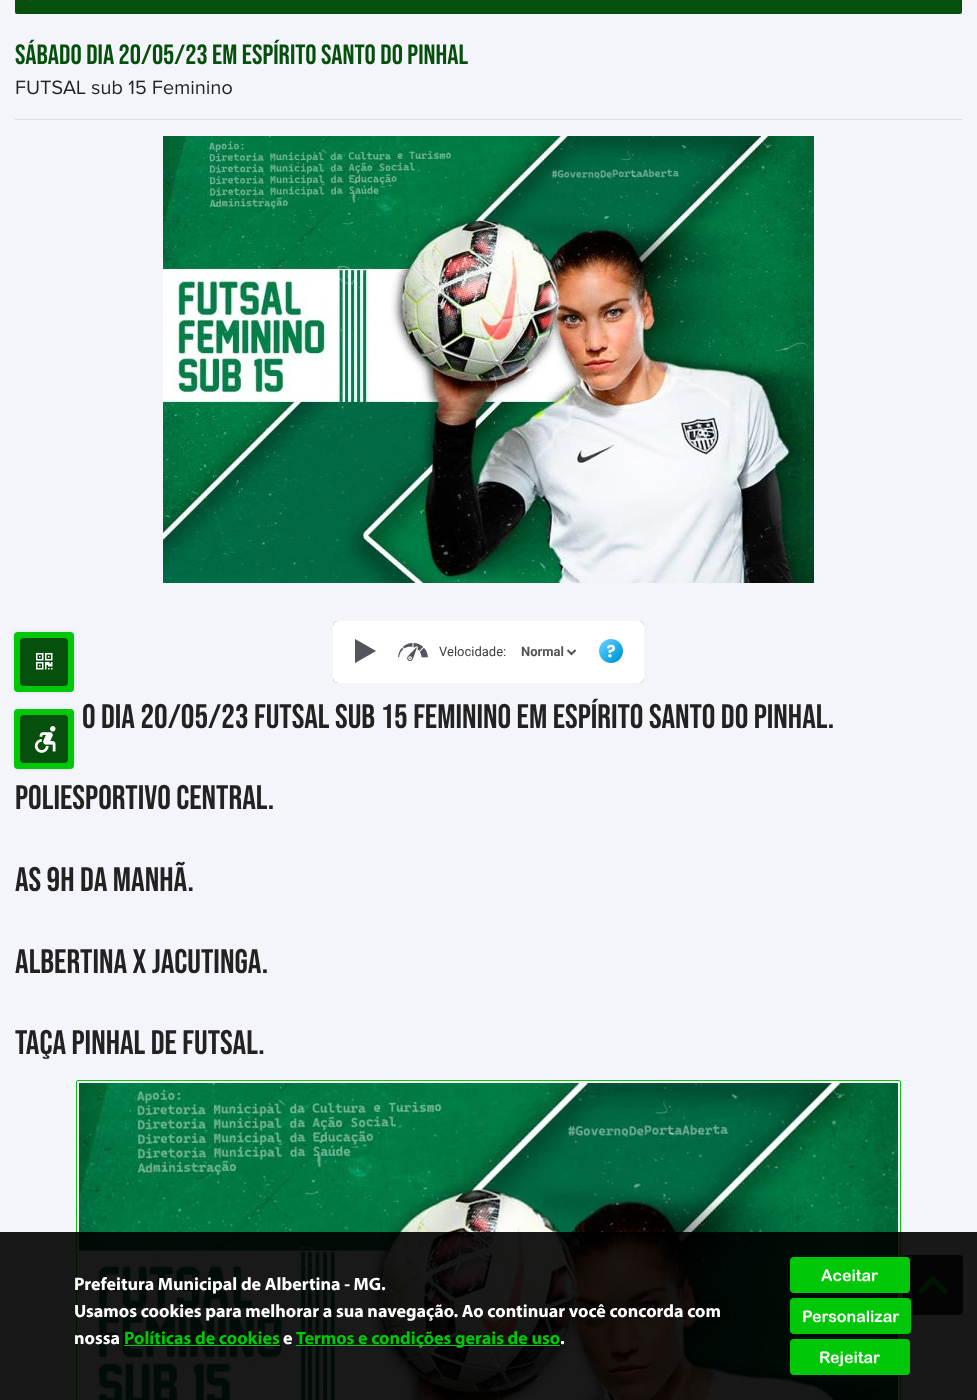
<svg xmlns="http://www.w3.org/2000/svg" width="977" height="1400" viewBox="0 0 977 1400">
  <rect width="100%" height="100%" fill="#f4f5fa"/>
  <rect x="15" y="-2" width="947" height="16" rx="2" fill="#064f0d"/>
  <image x="29" y="0" width="2" height="1" href="img/1.png"/>
  <image x="16" y="80" width="216" height="15" href="img/2.png"/>
  <path d="M15 119h947v1H15z" fill="#dcdde1"/>
  <image x="163" y="136" width="651" height="447" href="img/3.png"/>
  <rect x="333" y="621" width="311" height="62" rx="5" fill="#585858" filter="blur(0.5px)"/>
  <rect x="333" y="621" width="311" height="62" rx="5" fill="#fff"/>
  <image x="355" y="639" width="21" height="24" href="img/4.png"/>
  <image x="398" y="643" width="30" height="18" href="img/5.png"/>
  <path d="M567.5 650L571.5 654L575.5 650" fill="none" stroke="#4f5358" stroke-width="2"/>
  <image x="599" y="639" width="24" height="24" href="img/6.png"/>
  <rect x="76.5" y="1080.5" width="824" height="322" rx="1.5" fill="#fff" stroke="#00c707"/>
  <image x="79" y="1083" width="819" height="317" href="img/7.png"/>
  <rect x="903" y="1255" width="60" height="60" rx="4" fill="#2c2c2c"/>
  <image x="917" y="1275" width="31" height="19" href="img/8.png"/>
  <path d="M0 1232h977v168H0z" fill="#000000e6"/>
  <path d="M124 1345h156v1H124z" fill="#00c707"/>
  <path d="M296 1345h264v1H296z" fill="#00c707"/>
  <rect x="790" y="1257" width="120" height="36" rx="4" fill="#00c707"/>
  <rect x="790" y="1298" width="121" height="36" rx="4" fill="#00c707"/>
  <rect x="790" y="1339" width="120" height="36" rx="4" fill="#00c707"/>
  <rect x="14" y="632" width="60" height="60" rx="4" fill="#cbd0d6" filter="blur(1.5px)"/>
  <rect x="14" y="632" width="60" height="60" rx="4" fill="#00c707"/>
  <rect x="20" y="638" width="48" height="48" rx="4" fill="#064f0d"/>
  <image x="36" y="653" width="17" height="17" href="img/9.png"/>
  <rect x="14" y="709" width="60" height="60" rx="4" fill="#cbd0d6" filter="blur(1.5px)"/>
  <rect x="14" y="709" width="60" height="60" rx="4" fill="#00c707"/>
  <rect x="20" y="715" width="48" height="48" rx="4" fill="#064f0d"/>
  <image x="34" y="726" width="22" height="27" href="img/10.png"/>
  <text x="15" y="64" font-family="Bebas Neue" font-size="28" fill="#064f0d">Sábado dia 20/05/23 em Espírito Santo do Pinhal</text>
  <text x="439" y="656" font-family="Roboto" font-size="13" fill="#414141">Velocidade:</text>
  <text x="521" y="656" font-family="Roboto" font-size="13" font-weight="bold" fill="#4f5358">Normal</text>
  <g font-family="Bebas Neue" font-size="34" fill="#222">
    <text x="82" y="728">o dia 20/05/23 futsal sub 15 feminino em Espírito Santo do Pinhal.</text>
    <text x="15" y="809">Poliesportivo central.</text>
    <text x="15" y="891">As 9h da manhã.</text>
    <text x="15" y="973">Albertina x Jacutinga.</text>
    <text x="15" y="1054">Taça Pinhal de futsal.</text>
  </g>
  <g font-family="Myriad" font-size="18" font-weight="bold" fill="#fff">
    <text x="74" y="1290">Prefeitura Municipal de Albertina - MG.</text>
    <text x="74" y="1317">Usamos cookies para melhorar a sua navegação. Ao continuar você concorda com</text>
    <text x="74" y="1344">nossa</text>
  </g>
  <text x="124" y="1344" font-family="Myriad" font-size="18" font-weight="bold" fill="#00c707">Políticas de cookies</text>
  <text x="283" y="1344" font-family="Myriad" font-size="18" font-weight="bold" fill="#fff">e</text>
  <text x="296" y="1344" font-family="Myriad" font-size="18" font-weight="bold" fill="#00c707">Termos e condições gerais de uso</text>
  <text x="560" y="1344" font-family="Myriad" font-size="18" font-weight="bold" fill="#fff">.</text>
  <g font-family="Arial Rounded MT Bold" font-size="16" font-weight="bold" fill="#fff">
    <text x="821" y="1281">Aceitar</text>
    <text x="802" y="1322">Personalizar</text>
    <text x="819" y="1363">Rejeitar</text>
  </g>
</svg>
